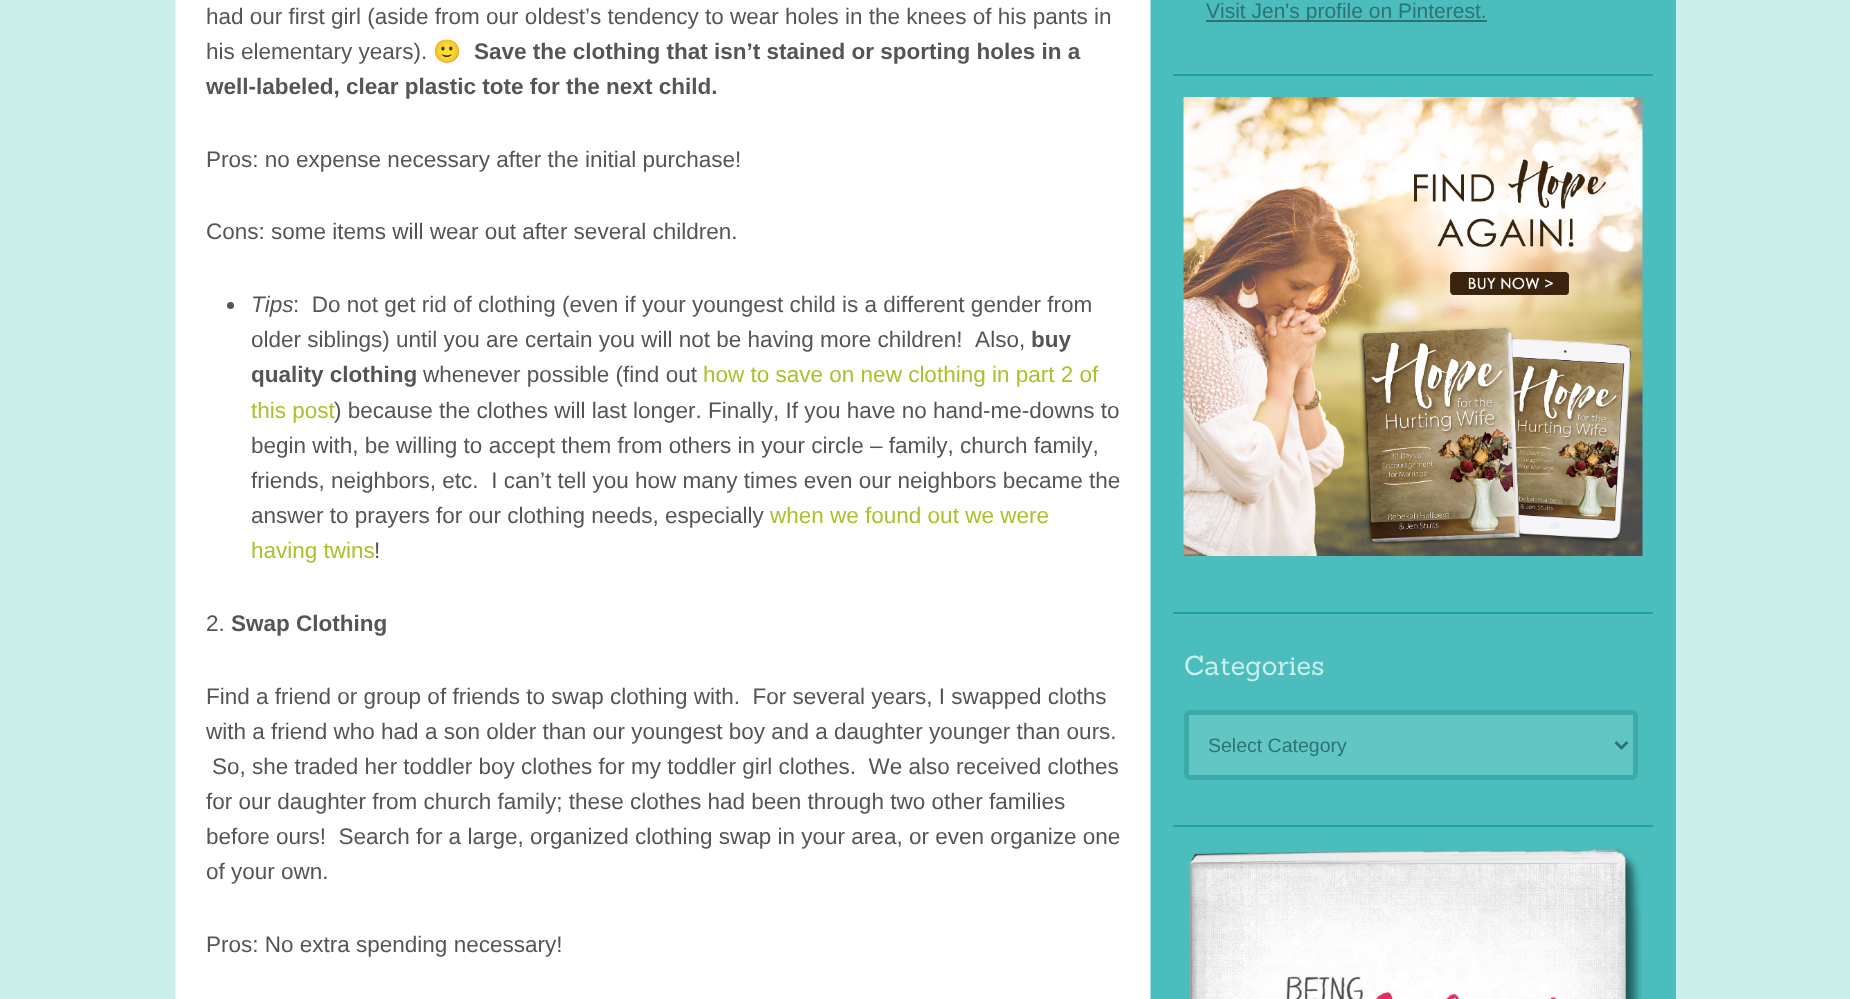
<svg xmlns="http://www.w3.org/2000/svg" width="1850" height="999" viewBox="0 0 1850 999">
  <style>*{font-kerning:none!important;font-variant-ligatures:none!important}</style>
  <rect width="100%" height="100%" fill="#cdefec"/>
  <image x="175" y="0" width="976" height="999" href="img/1.png"/>
  <circle cx="230.5" cy="305.5" r="3.5" fill="#555"/>
  <path d="M1151 0h525v999H1151z" fill="#4bbdbd"/>
  <path d="M1173 74h480v2H1173z" fill="#1ba3a3"/>
  <path d="M1206 20h281v2H1206z" fill="#2d7373"/>
  <path d="M1173 612h480v2H1173z" fill="#1ba3a3"/>
  <image x="1183" y="97" width="460" height="459" href="img/2.png"/>
  <path d="M1173 825h480v2H1173z" fill="#1ba3a3"/>
  <rect x="1186.5" y="712.5" width="449" height="65" rx="3.5" fill="#62c6c5" stroke="#3daaaa" stroke-width="5"/>
  <path d="M1615.5 742L1621.5 748L1627.5 742" fill="none" stroke="#2d7373" stroke-width="3"/>
  <image x="1186" y="848" width="456" height="151" href="img/3.png"/>
  <g font-family="Liberation Sans" font-size="22.5" fill="#555">
    <text x="206" y="24">had our first girl (aside from our oldest’s tendency to wear holes in the knees of his pants in</text>
    <text x="206" y="59">his elementary years).</text>
  </g>
  <text x="433" y="59" font-family="Noto Color Emoji" font-size="22.5" fill="#555">🙂</text>
  <g font-family="Liberation Sans" font-size="22.5" font-weight="bold" fill="#555">
    <text x="474" y="59">Save the clothing that isn’t stained or sporting holes in a</text>
    <text x="206" y="94">well-labeled, clear plastic tote for the next child.</text>
  </g>
  <g font-family="Liberation Sans" font-size="22.5" fill="#555">
    <text x="206" y="167">Pros: no expense necessary after the initial purchase!</text>
    <text x="206" y="239">Cons: some items will wear out after several children.</text>
  </g>
  <text x="251" y="312" font-family="Liberation Sans" font-size="22.5" font-style="italic" fill="#555">Tips</text>
  <g font-family="Liberation Sans" font-size="22.5" fill="#555">
    <text x="293" y="312" xml:space="preserve">:  Do not get rid of clothing (even if your youngest child is a different gender from</text>
    <text x="251" y="347" xml:space="preserve">older siblings) until you are certain you will not be having more children!  Also,</text>
  </g>
  <g font-family="Liberation Sans" font-size="22.5" font-weight="bold" fill="#555">
    <text x="1031" y="347">buy</text>
    <text x="251" y="382">quality clothing</text>
  </g>
  <text x="423" y="382" font-family="Liberation Sans" font-size="22.5" fill="#555">whenever possible (find out</text>
  <g font-family="Liberation Sans" font-size="22.5" fill="#a8c22b">
    <text x="703" y="382">how to save on new clothing in part 2 of</text>
    <text x="251" y="418">this post</text>
  </g>
  <g font-family="Liberation Sans" font-size="22.5" fill="#555">
    <text x="334" y="418">) because the clothes will last longer. Finally, If you have no hand-me-downs to</text>
    <text x="251" y="453">begin with, be willing to accept them from others in your circle – family, church family,</text>
    <text x="251" y="488" xml:space="preserve">friends, neighbors, etc.  I can’t tell you how many times even our neighbors became the</text>
    <text x="251" y="523">answer to prayers for our clothing needs, especially</text>
  </g>
  <g font-family="Liberation Sans" font-size="22.5" fill="#a8c22b">
    <text x="770" y="523">when we found out we were</text>
    <text x="251" y="558">having twins</text>
  </g>
  <g font-family="Liberation Sans" font-size="22.5" fill="#555">
    <text x="374" y="558">!</text>
    <text x="206" y="631">2.</text>
  </g>
  <text x="231" y="631" font-family="Liberation Sans" font-size="22.5" font-weight="bold" fill="#555">Swap Clothing</text>
  <g font-family="Liberation Sans" font-size="22.5" fill="#555">
    <text x="206" y="704" xml:space="preserve">Find a friend or group of friends to swap clothing with.  For several years, I swapped cloths</text>
    <text x="206" y="739">with a friend who had a son older than our youngest boy and a daughter younger than ours.</text>
    <text x="212" y="774" xml:space="preserve">So, she traded her toddler boy clothes for my toddler girl clothes.  We also received clothes</text>
    <text x="206" y="809">for our daughter from church family; these clothes had been through two other families</text>
    <text x="206" y="844" xml:space="preserve">before ours!  Search for a large, organized clothing swap in your area, or even organize one</text>
    <text x="206" y="879">of your own.</text>
    <text x="206" y="952">Pros: No extra spending necessary!</text>
  </g>
  <text x="1206" y="18" font-family="Liberation Sans" font-size="21" fill="#2d7373">Visit Jen's profile on Pinterest.</text>
  <text x="1184" y="675" font-family="Sanchez" font-size="27" fill="#cdefec">Categories</text>
  <text x="1208" y="752" font-family="Liberation Sans" font-size="19.5" fill="#2d7373">Select Category</text>
</svg>
